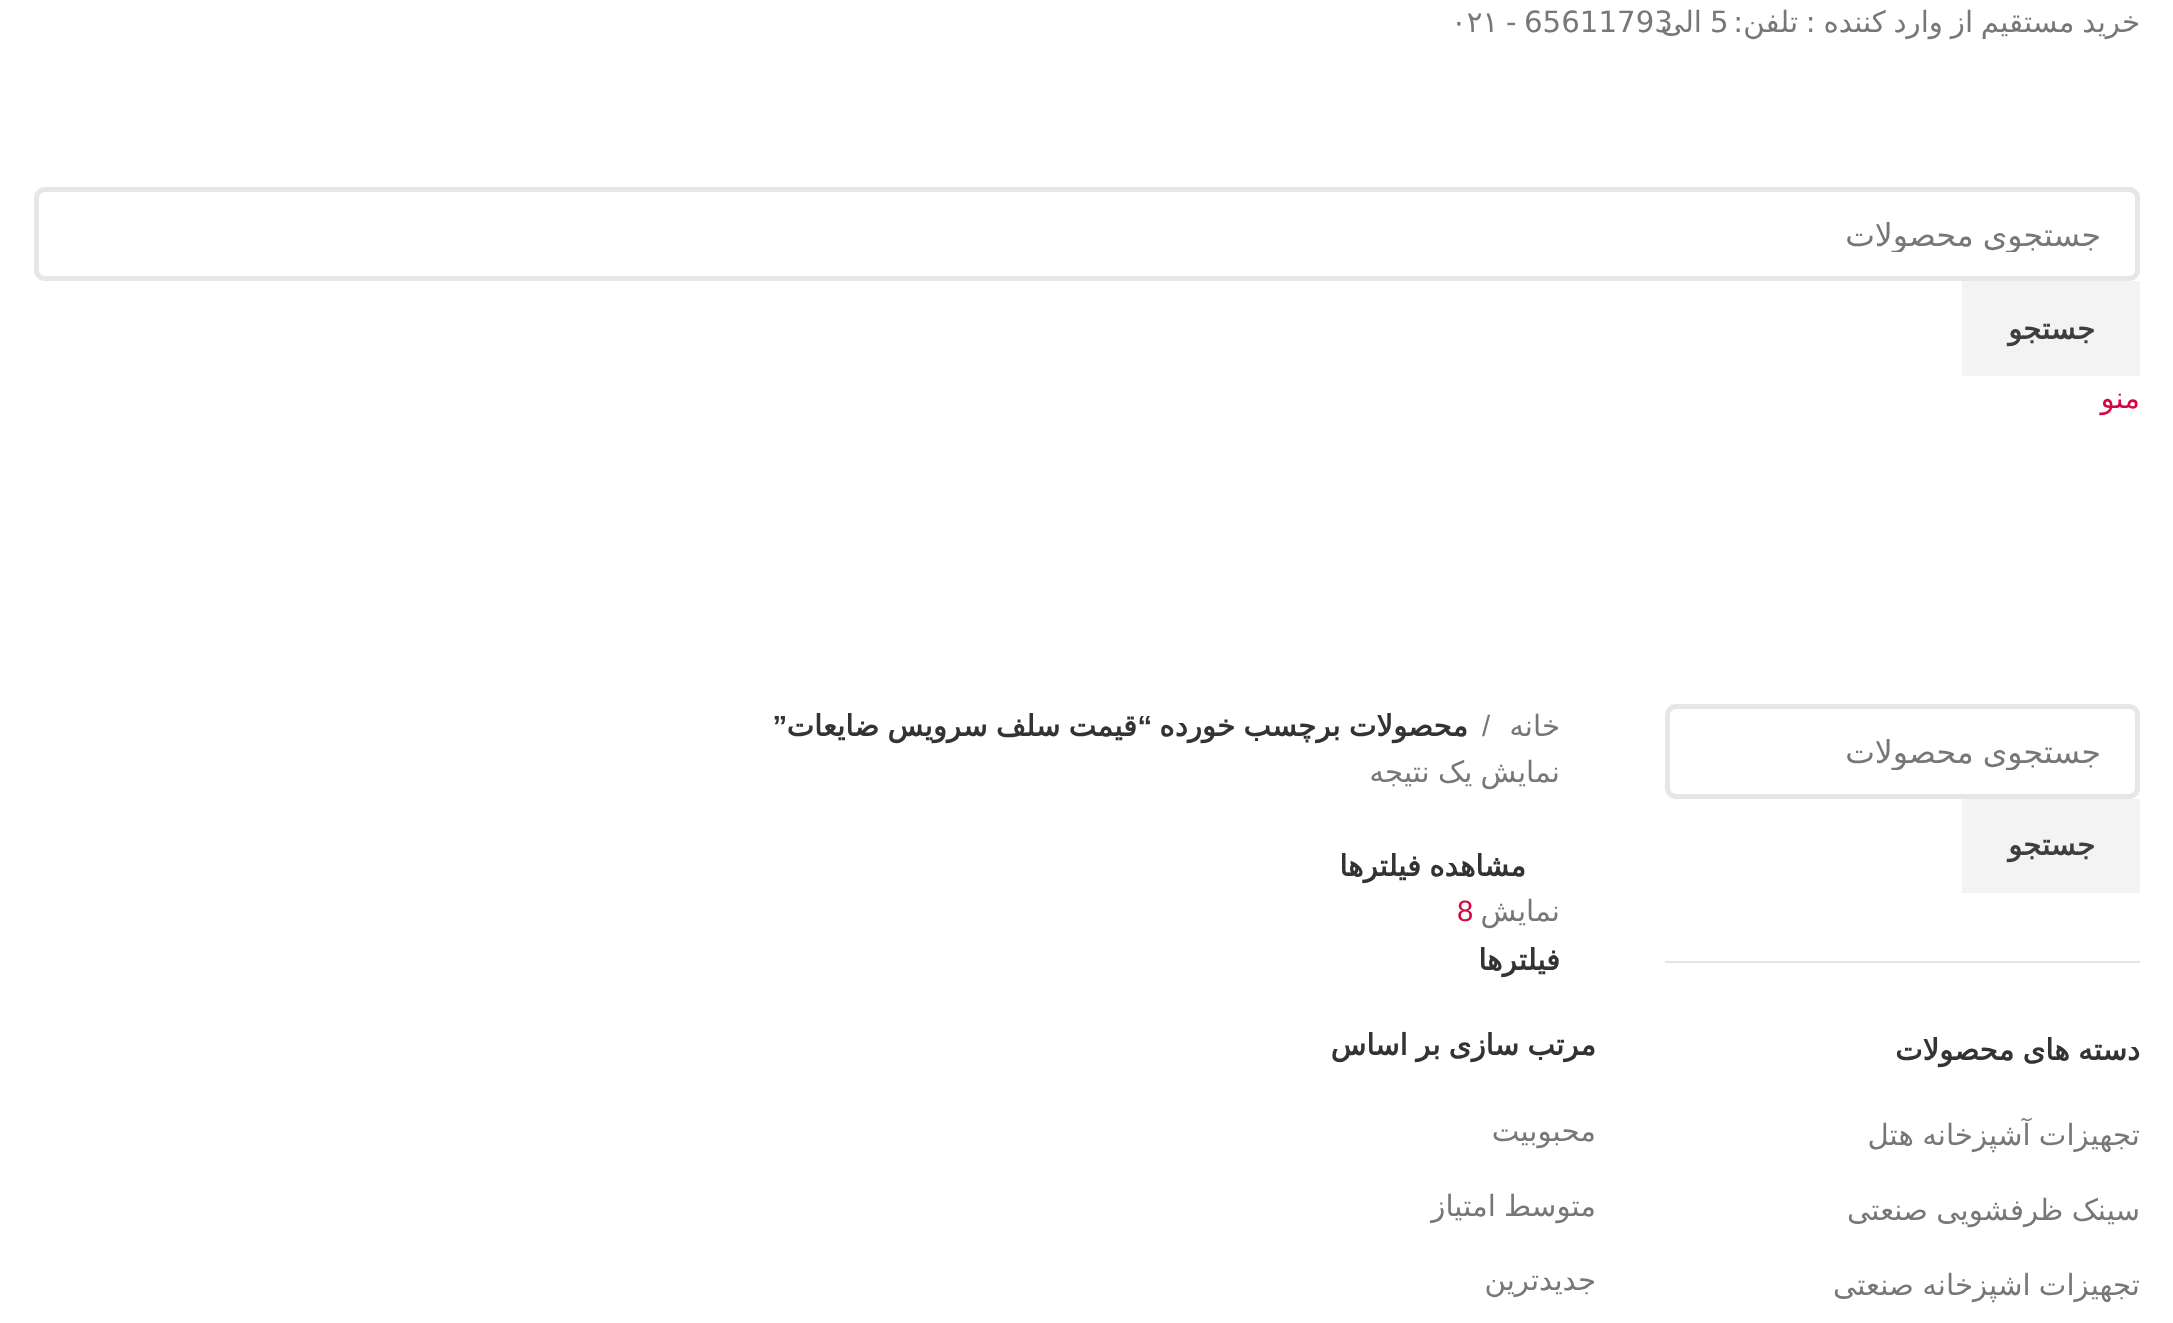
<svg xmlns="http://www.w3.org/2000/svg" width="2173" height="1323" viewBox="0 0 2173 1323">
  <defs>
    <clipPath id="clip1"><path d="M72 216h2030v36H72z"/></clipPath>
    <clipPath id="clip2"><path d="M1703 734h399v36H1703z"/></clipPath>
  </defs>
  <rect width="100%" height="100%" fill="#fff"/>
  <rect x="36.5" y="189.5" width="2101" height="89" rx="8.5" fill="none" stroke="#e6e6e6" stroke-width="5"/>
  <path d="M1962 281h178v95H1962z" fill="#f3f3f3"/>
  <path d="M1665 961h475v2H1665z" fill="#e4e4e4"/>
  <rect x="1667.5" y="706.5" width="470" height="90" rx="8.5" fill="none" stroke="#e6e6e6" stroke-width="5"/>
  <path d="M1962 799h178v94H1962z" fill="#f3f3f3"/>
  <text x="2140" y="32" word-spacing="-1.5" font-family="DejaVu Sans" font-size="29.25" direction="rtl" fill="#777">خرید مستقیم از وارد کننده : تلفن:</text>
  <g font-family="DejaVu Sans" font-size="29.25" fill="#777">
    <text x="1710" y="32">5</text>
    <text x="1524" y="32">65611793</text>
  </g>
  <text x="1702" y="32" font-family="DejaVu Sans" font-size="29.25" direction="rtl" fill="#777">الی</text>
  <g font-family="DejaVu Sans" font-size="29.25" fill="#777">
    <text x="1506" y="32">-</text>
    <text x="1451" y="32">۰۲۱</text>
  </g>
  <g clip-path="url(#clip1)">
    <text x="2101" y="246" word-spacing="-1" font-family="DejaVu Sans" font-size="31.5" direction="rtl" fill="#777">جستجوی محصولات</text>
  </g>
  <text x="2095" y="339" font-family="DejaVu Sans" font-size="29.25" font-weight="bold" direction="rtl" fill="#3e3e3e">جستجو</text>
  <text x="2140" y="408" font-family="DejaVu Sans" font-size="29.25" direction="rtl" fill="#d60644">منو</text>
  <g clip-path="url(#clip2)">
    <text x="2101" y="763" word-spacing="-1" font-family="DejaVu Sans" font-size="31.5" direction="rtl" fill="#777">جستجوی محصولات</text>
  </g>
  <text x="2095" y="855" font-family="DejaVu Sans" font-size="29.25" font-weight="bold" direction="rtl" fill="#3e3e3e">جستجو</text>
  <text x="2140" y="1060" word-spacing="-1" font-family="DejaVu Sans" font-size="29.25" font-weight="bold" direction="rtl" fill="#333">دسته های محصولات</text>
  <g font-family="DejaVu Sans" font-size="29.25" direction="rtl" fill="#777">
    <text x="2140" y="1145" word-spacing="-1">تجهیزات آشپزخانه هتل</text>
    <text x="2140" y="1220" word-spacing="-1">سینک ظرفشویی صنعتی</text>
    <text x="2140" y="1295" word-spacing="-1">تجهیزات اشپزخانه صنعتی</text>
    <text x="1560" y="736">خانه</text>
  </g>
  <text x="1482" y="736" font-family="Liberation Sans" font-size="29.25" fill="#777">/</text>
  <text x="1468" y="736" word-spacing="-1" font-family="DejaVu Sans" font-size="29.25" font-weight="bold" direction="rtl" fill="#333">محصولات برچسب خورده</text>
  <text x="1152" y="736" font-family="Liberation Sans" font-size="29.25" font-weight="bold" direction="rtl" fill="#333">“</text>
  <text x="1137" y="736" word-spacing="-1" font-family="DejaVu Sans" font-size="29.25" font-weight="bold" direction="rtl" fill="#333">قیمت سلف سرویس ضایعات</text>
  <text x="787" y="736" font-family="Liberation Sans" font-size="29.25" font-weight="bold" direction="rtl" fill="#333">”</text>
  <text x="1560" y="782" word-spacing="-1" font-family="DejaVu Sans" font-size="29.25" direction="rtl" fill="#777">نمایش یک نتیجه</text>
  <text x="1526" y="876" word-spacing="-1" font-family="DejaVu Sans" font-size="29.25" font-weight="bold" direction="rtl" fill="#333">مشاهده فیلترها</text>
  <text x="1560" y="921" font-family="DejaVu Sans" font-size="29.25" direction="rtl" fill="#777">نمایش</text>
  <text x="1457" y="921" font-family="Liberation Sans" font-size="29.25" fill="#d60644">8</text>
  <g font-family="DejaVu Sans" font-size="29.25" font-weight="bold" direction="rtl" fill="#333">
    <text x="1560" y="970">فیلترها</text>
    <text x="1596" y="1055" word-spacing="-1">مرتب سازی بر اساس</text>
  </g>
  <g font-family="DejaVu Sans" font-size="29.25" direction="rtl" fill="#777">
    <text x="1596" y="1141">محبوبیت</text>
    <text x="1596" y="1216" word-spacing="-1">متوسط امتیاز</text>
    <text x="1596" y="1290">جدیدترین</text>
  </g>
</svg>
